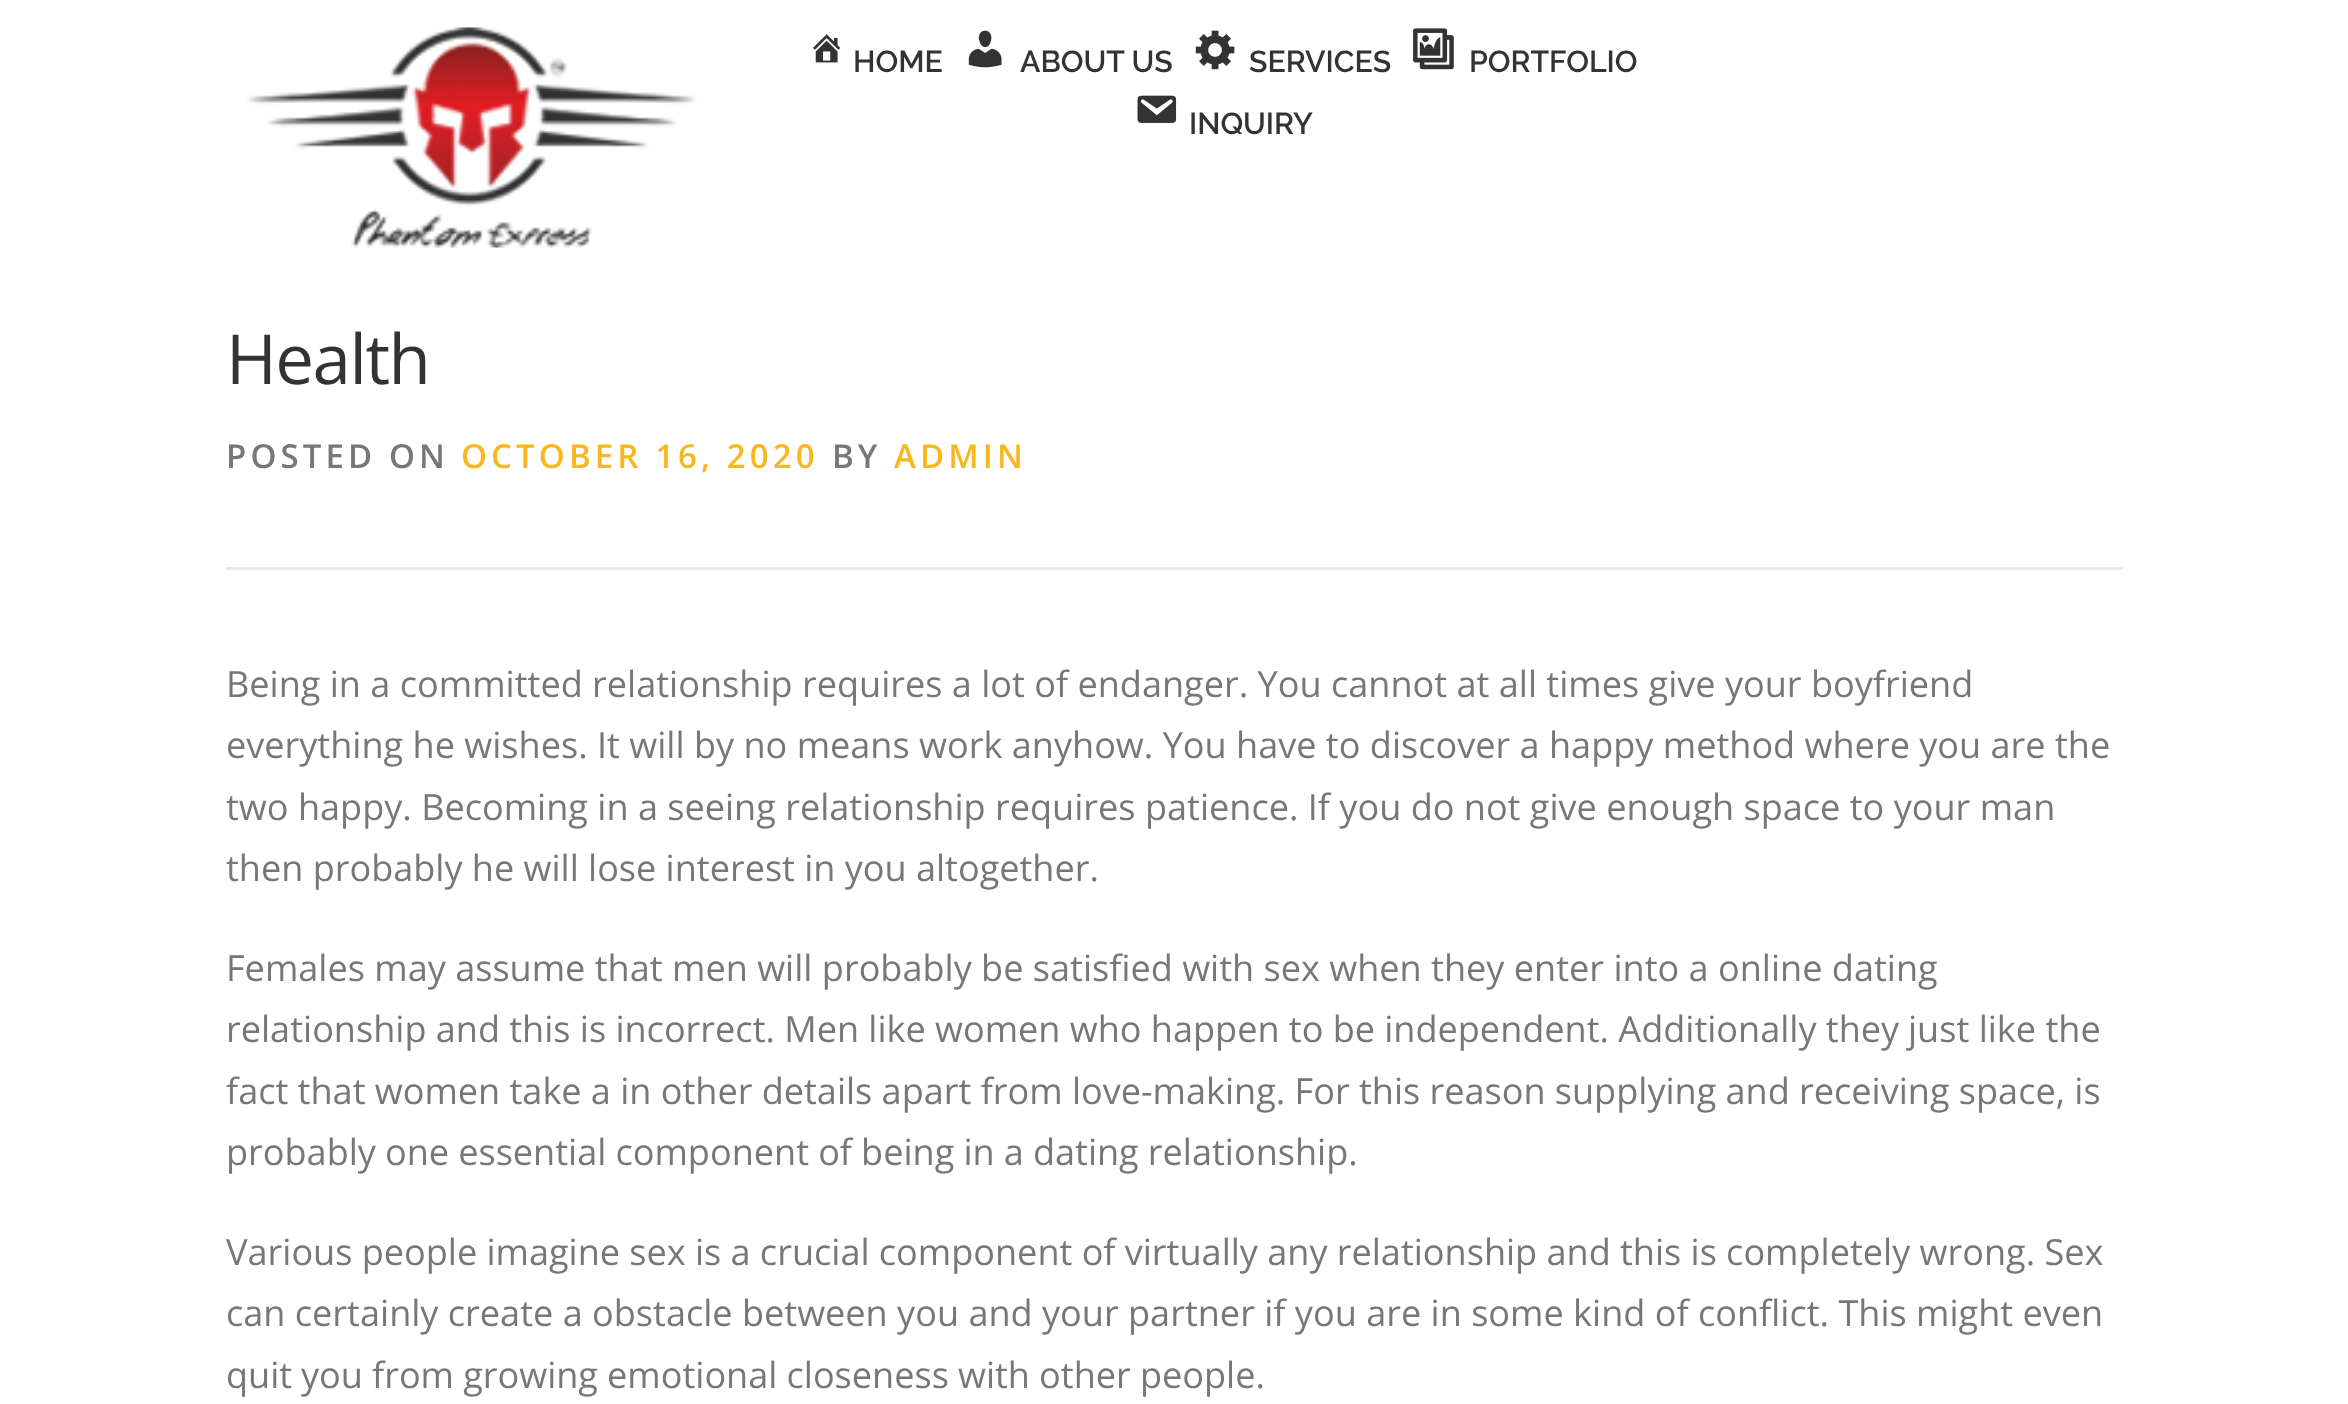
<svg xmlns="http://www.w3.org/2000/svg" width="2348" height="1404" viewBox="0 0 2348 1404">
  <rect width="100%" height="100%" fill="#fff"/>
  <image x="247" y="27" width="450" height="221" href="img/1.png"/>
  <image x="813" y="34" width="28" height="29" href="img/2.png"/>
  <image x="968" y="30" width="34" height="38" href="img/3.png"/>
  <image x="1195" y="30" width="40" height="40" href="img/4.png"/>
  <image x="1413" y="28" width="41" height="42" href="img/5.png"/>
  <image x="1137" y="95" width="40" height="28" href="img/6.png"/>
  <path d="M226 567h1897v3H226z" fill="#e9e9e9"/>
  <g font-family="Raleway" font-size="30.25" font-weight="600" fill="#333">
    <text x="853" y="72">HOME</text>
    <text x="1020" y="72">ABOUT US</text>
    <text x="1249" y="72">SERVICES</text>
    <text x="1469" y="72">PORTFOLIO</text>
    <text x="1189" y="134">INQUIRY</text>
  </g>
  <text x="226" y="384" font-family="Open Sans" font-size="69" letter-spacing="-1.5" fill="#333">Health</text>
  <text x="226" y="468" font-family="Open Sans" font-size="33" font-weight="600" letter-spacing="4.1" fill="#777">POSTED ON</text>
  <text x="461" y="468" font-family="Open Sans" font-size="33" font-weight="600" letter-spacing="4.1" fill="#f8b71f">OCTOBER 16, 2020</text>
  <text x="832" y="468" font-family="Open Sans" font-size="33" font-weight="600" letter-spacing="4.1" fill="#777">BY</text>
  <text x="894" y="468" font-family="Open Sans" font-size="33" font-weight="600" letter-spacing="4.1" fill="#f8b71f">ADMIN</text>
  <g font-family="Open Sans" font-size="36.1" fill="#777">
    <text x="226" y="697">Being in a committed relationship requires a lot of endanger. You cannot at all times give your boyfriend</text>
    <text x="226" y="758">everything he wishes. It will by no means work anyhow. You have to discover a happy method where you are the</text>
    <text x="226" y="820">two happy. Becoming in a seeing relationship requires patience. If you do not give enough space to your man</text>
    <text x="226" y="881" word-spacing="-0.1">then probably he will lose interest in you altogether.</text>
    <text x="226" y="981">Females may assume that men will probably be satisfied with sex when they enter into a online dating</text>
    <text x="226" y="1042" word-spacing="-0.1">relationship and this is incorrect. Men like women who happen to be independent. Additionally they</text>
    <text x="1908" y="1042">just like the</text>
    <text x="226" y="1104" word-spacing="-0.1">fact that women take a in other details apart from love-making. For this reason supplying and receiving space, is</text>
    <text x="226" y="1165">probably</text>
    <text x="385" y="1165" word-spacing="-0.25">one essential component of being in a dating relationship.</text>
    <text x="226" y="1265" word-spacing="-0.1">Various people imagine sex is a crucial component of virtually any relationship and this is completely wrong. Sex</text>
    <text x="226" y="1326">can certainly create a obstacle between you and your partner if you are in some kind of conflict. This might even</text>
    <text x="226" y="1388">quit</text>
    <text x="301" y="1388" word-spacing="-0.25">you from growing emotional closeness with other people.</text>
  </g>
</svg>
